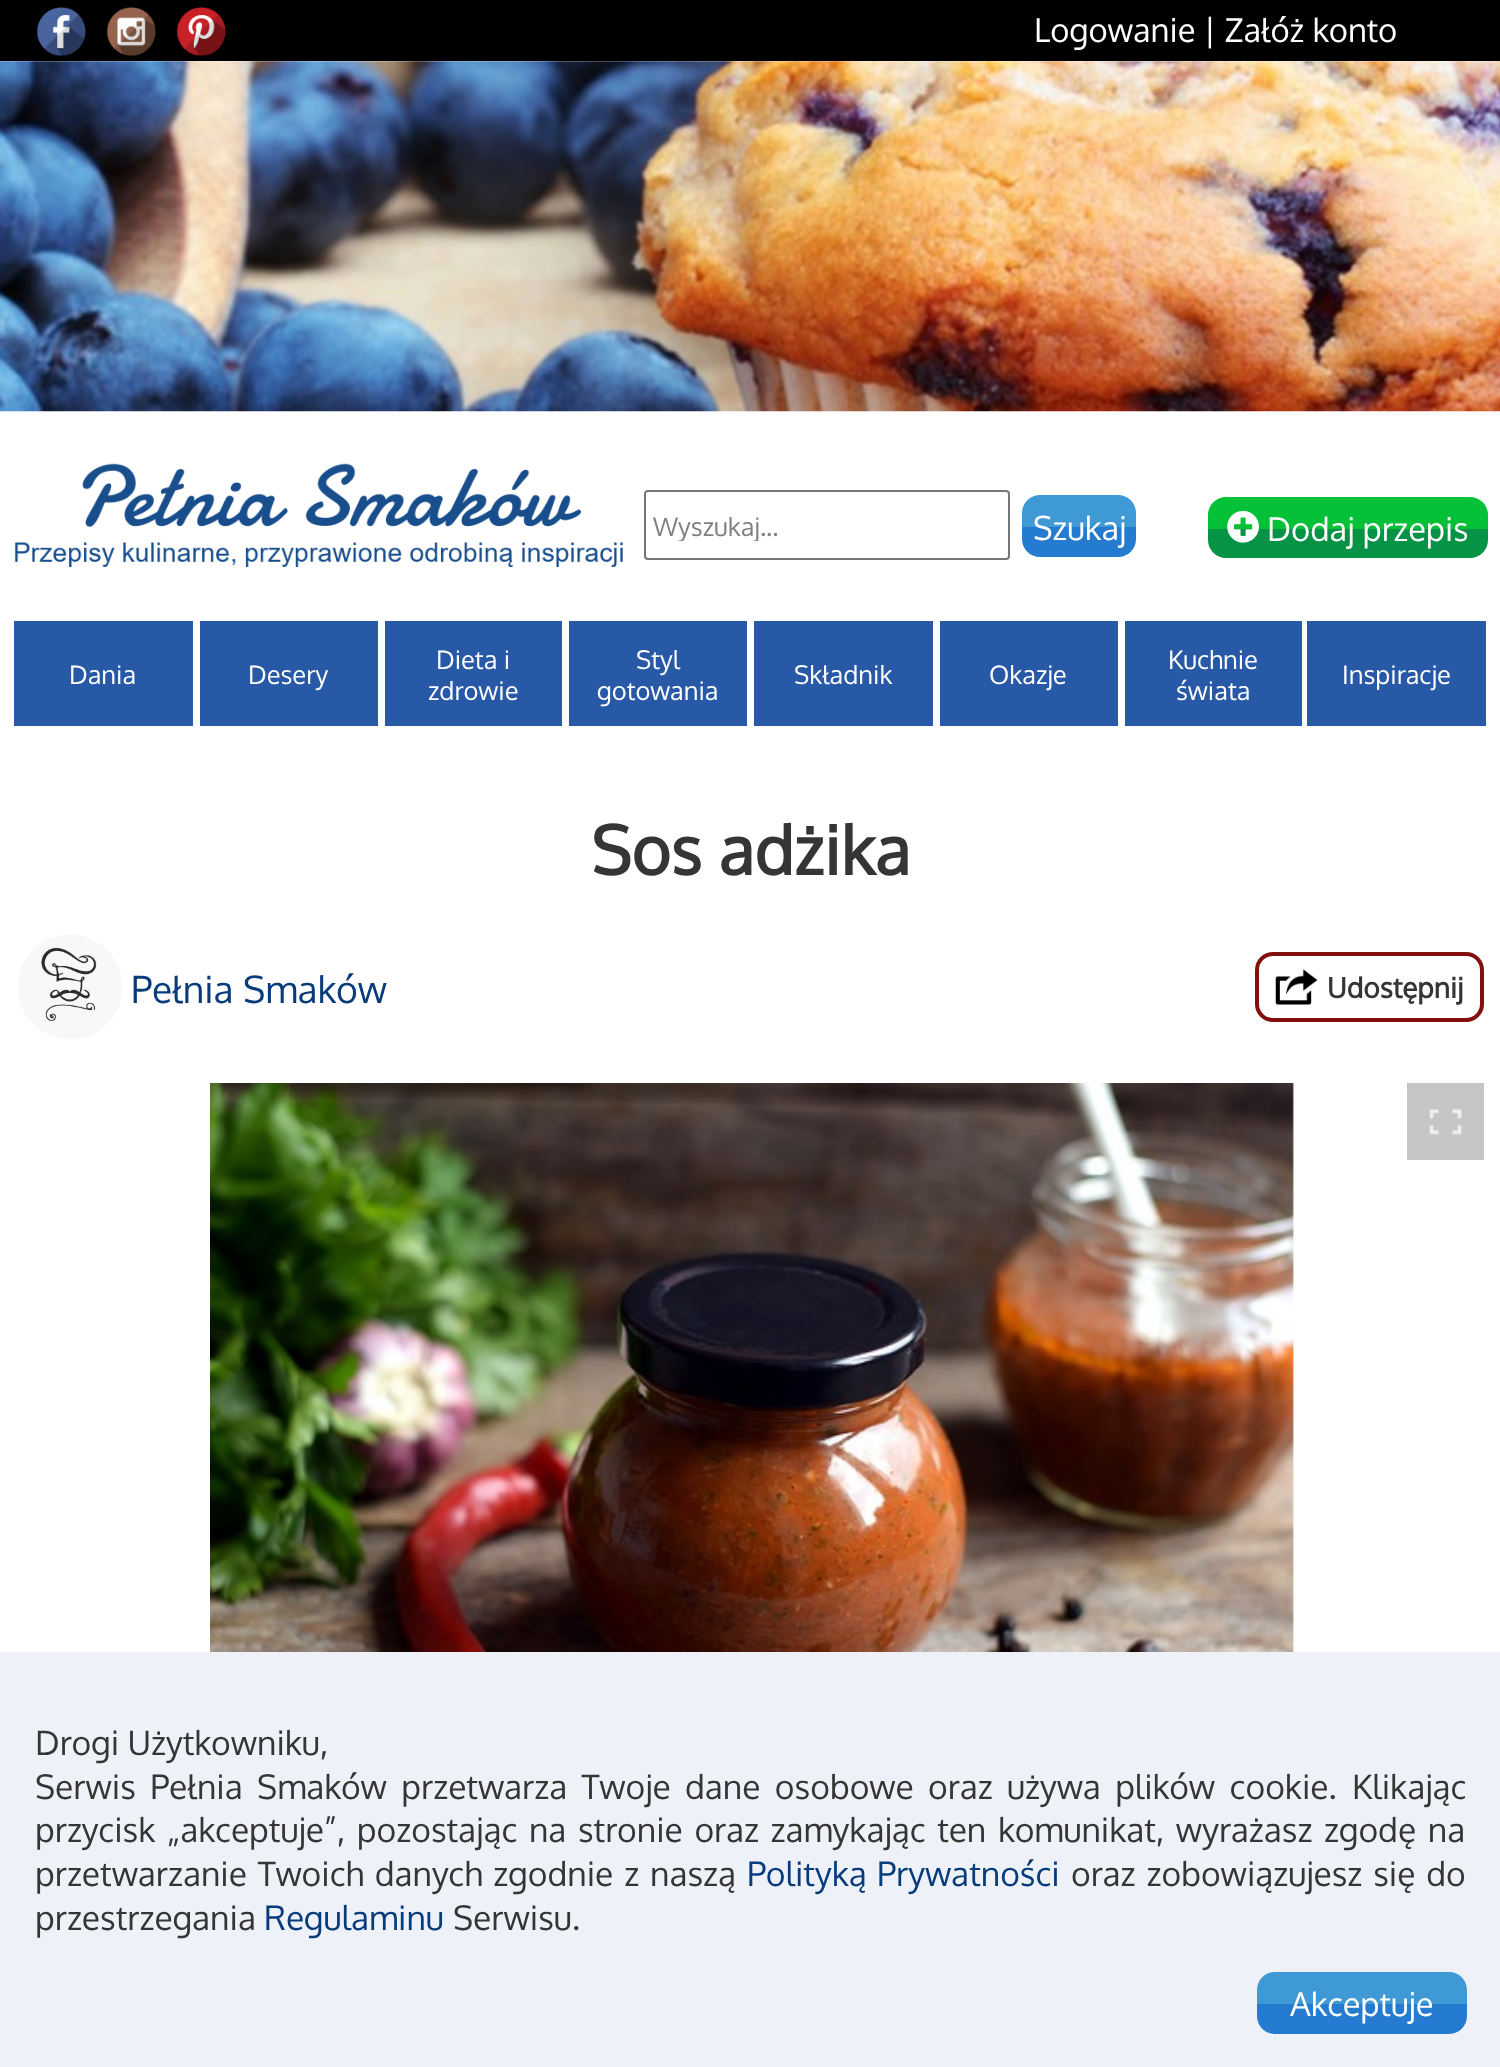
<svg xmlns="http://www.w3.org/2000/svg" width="1500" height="2067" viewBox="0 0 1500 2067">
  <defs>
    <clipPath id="clip1"><path d="M653 509h350v32H653z"/></clipPath>
  </defs>
  <rect width="100%" height="100%" fill="#fff"/>
  <path d="M0 0h1500v61H0z" fill="#000"/>
  <image x="36" y="7" width="50" height="49" href="img/1.png"/>
  <image x="106" y="7" width="50" height="49" href="img/2.png"/>
  <image x="176" y="7" width="50" height="49" href="img/3.png"/>
  <image x="0" y="61" width="1500" height="351" href="img/4.png"/>
  <image x="14" y="463" width="609" height="104" href="img/5.png"/>
  <rect x="645" y="491" width="364" height="68" rx="3" fill="none" stroke="#767676" stroke-width="2"/>
  <path d="M1040 495H1118C1128 495 1136 503 1136 513V527H1022V513C1022 503 1030 495 1040 495Z" fill="#3f99d4"/>
  <path d="M1022 527H1136V539C1136 549 1128 557 1118 557H1040C1030 557 1022 549 1022 539Z" fill="#247bcf"/>
  <path d="M1226 497H1470C1480 497 1488 505 1488 515V529H1208V515C1208 505 1216 497 1226 497Z" fill="#05c137"/>
  <path d="M1208 529H1488V540C1488 550 1480 558 1470 558H1226C1216 558 1208 550 1208 540Z" fill="#069345"/>
  <image x="1227" y="510" width="32" height="33" href="img/6.png"/>
  <path d="M14 621h179v105H14z" fill="#2859a7"/>
  <path d="M200 621h178v105H200z" fill="#2859a7"/>
  <path d="M385 621h177v105H385z" fill="#2859a7"/>
  <path d="M569 621h178v105H569z" fill="#2859a7"/>
  <path d="M754 621h179v105H754z" fill="#2859a7"/>
  <path d="M940 621h178v105H940z" fill="#2859a7"/>
  <path d="M1125 621h177v105H1125z" fill="#2859a7"/>
  <path d="M1307 621h179v105H1307z" fill="#2859a7"/>
  <image x="18" y="935" width="104" height="104" href="img/7.png"/>
  <rect x="1257" y="954" width="225" height="66" rx="16" fill="none" stroke="#820e0e" stroke-width="4"/>
  <image x="1275" y="969" width="43" height="36" href="img/8.png"/>
  <image x="210" y="1083" width="1084" height="569" href="img/9.png"/>
  <path d="M1407 1083h77v77H1407z" fill="#c6c6c6"/>
  <image x="1429" y="1109" width="33" height="26" href="img/10.png"/>
  <path d="M0 1652h1500v415H0z" fill="#eef2f8"/>
  <path d="M1275 1972H1449C1459 1972 1467 1980 1467 1990V2004H1257V1990C1257 1980 1265 1972 1275 1972Z" fill="#3f99d4"/>
  <path d="M1257 2004H1467V2016C1467 2026 1459 2034 1449 2034H1275C1265 2034 1257 2026 1257 2016Z" fill="#247bcf"/>
  <text x="1034" y="42" font-family="Oxygen" font-size="32.75" fill="#fff">Logowanie | Załóż konto</text>
  <g clip-path="url(#clip1)">
    <text x="653" y="536" font-family="Oxygen" font-size="25.5" fill="#808080">Wyszukaj...</text>
  </g>
  <g font-family="Oxygen" font-size="32.75" fill="#fff">
    <text x="1033" y="540">Szukaj</text>
    <text x="1267" y="541">Dodaj przepis</text>
  </g>
  <g font-family="Oxygen" font-size="25.5" fill="#fff">
    <text x="69" y="684">Dania</text>
    <text x="248" y="684">Desery</text>
    <text x="436" y="669">Dieta i</text>
    <text x="428" y="700">zdrowie</text>
    <text x="636" y="669">Styl</text>
    <text x="597" y="700">gotowania</text>
    <text x="794" y="684">Składnik</text>
    <text x="989" y="684">Okazje</text>
    <text x="1168" y="669">Kuchnie</text>
    <text x="1176" y="700">świata</text>
    <text x="1342" y="684">Inspiracje</text>
  </g>
  <text x="591" y="875" font-family="Oxygen" font-size="67" font-weight="bold" fill="#353535">Sos adżika</text>
  <text x="131" y="1003" font-family="Oxygen" font-size="37.25" fill="#073b7c">Pełnia Smaków</text>
  <text x="1327" y="998" font-family="Oxygen" font-size="28" font-weight="bold" fill="#353535">Udostępnij</text>
  <g font-family="Oxygen" font-size="33.6" fill="#353535">
    <text x="35" y="1755">Drogi Użytkowniku,</text>
    <text x="35" y="1799" word-spacing="6">Serwis Pełnia Smaków przetwarza Twoje dane osobowe oraz używa plików cookie.</text>
    <text x="1352" y="1799">Klikając</text>
    <text x="35" y="1842" word-spacing="3.25">przycisk „akceptuje”, pozostając na stronie oraz zamykając ten komunikat, wyrażasz zgodę na</text>
    <text x="35" y="1886" word-spacing="2.5">przetwarzanie Twoich danych zgodnie z naszą</text>
  </g>
  <text x="747" y="1886" word-spacing="2" font-family="Oxygen" font-size="33.6" fill="#073b7c">Polityką Prywatności</text>
  <g font-family="Oxygen" font-size="33.6" fill="#353535">
    <text x="1071" y="1886" word-spacing="2.5">oraz zobowiązujesz się do</text>
    <text x="35" y="1930">przestrzegania</text>
  </g>
  <text x="264" y="1930" font-family="Oxygen" font-size="33.6" fill="#073b7c">Regulaminu</text>
  <text x="453" y="1930" font-family="Oxygen" font-size="33.6" fill="#353535">Serwisu.</text>
  <text x="1290" y="2016" font-family="Oxygen" font-size="32.75" fill="#fff">Akceptuje</text>
</svg>
